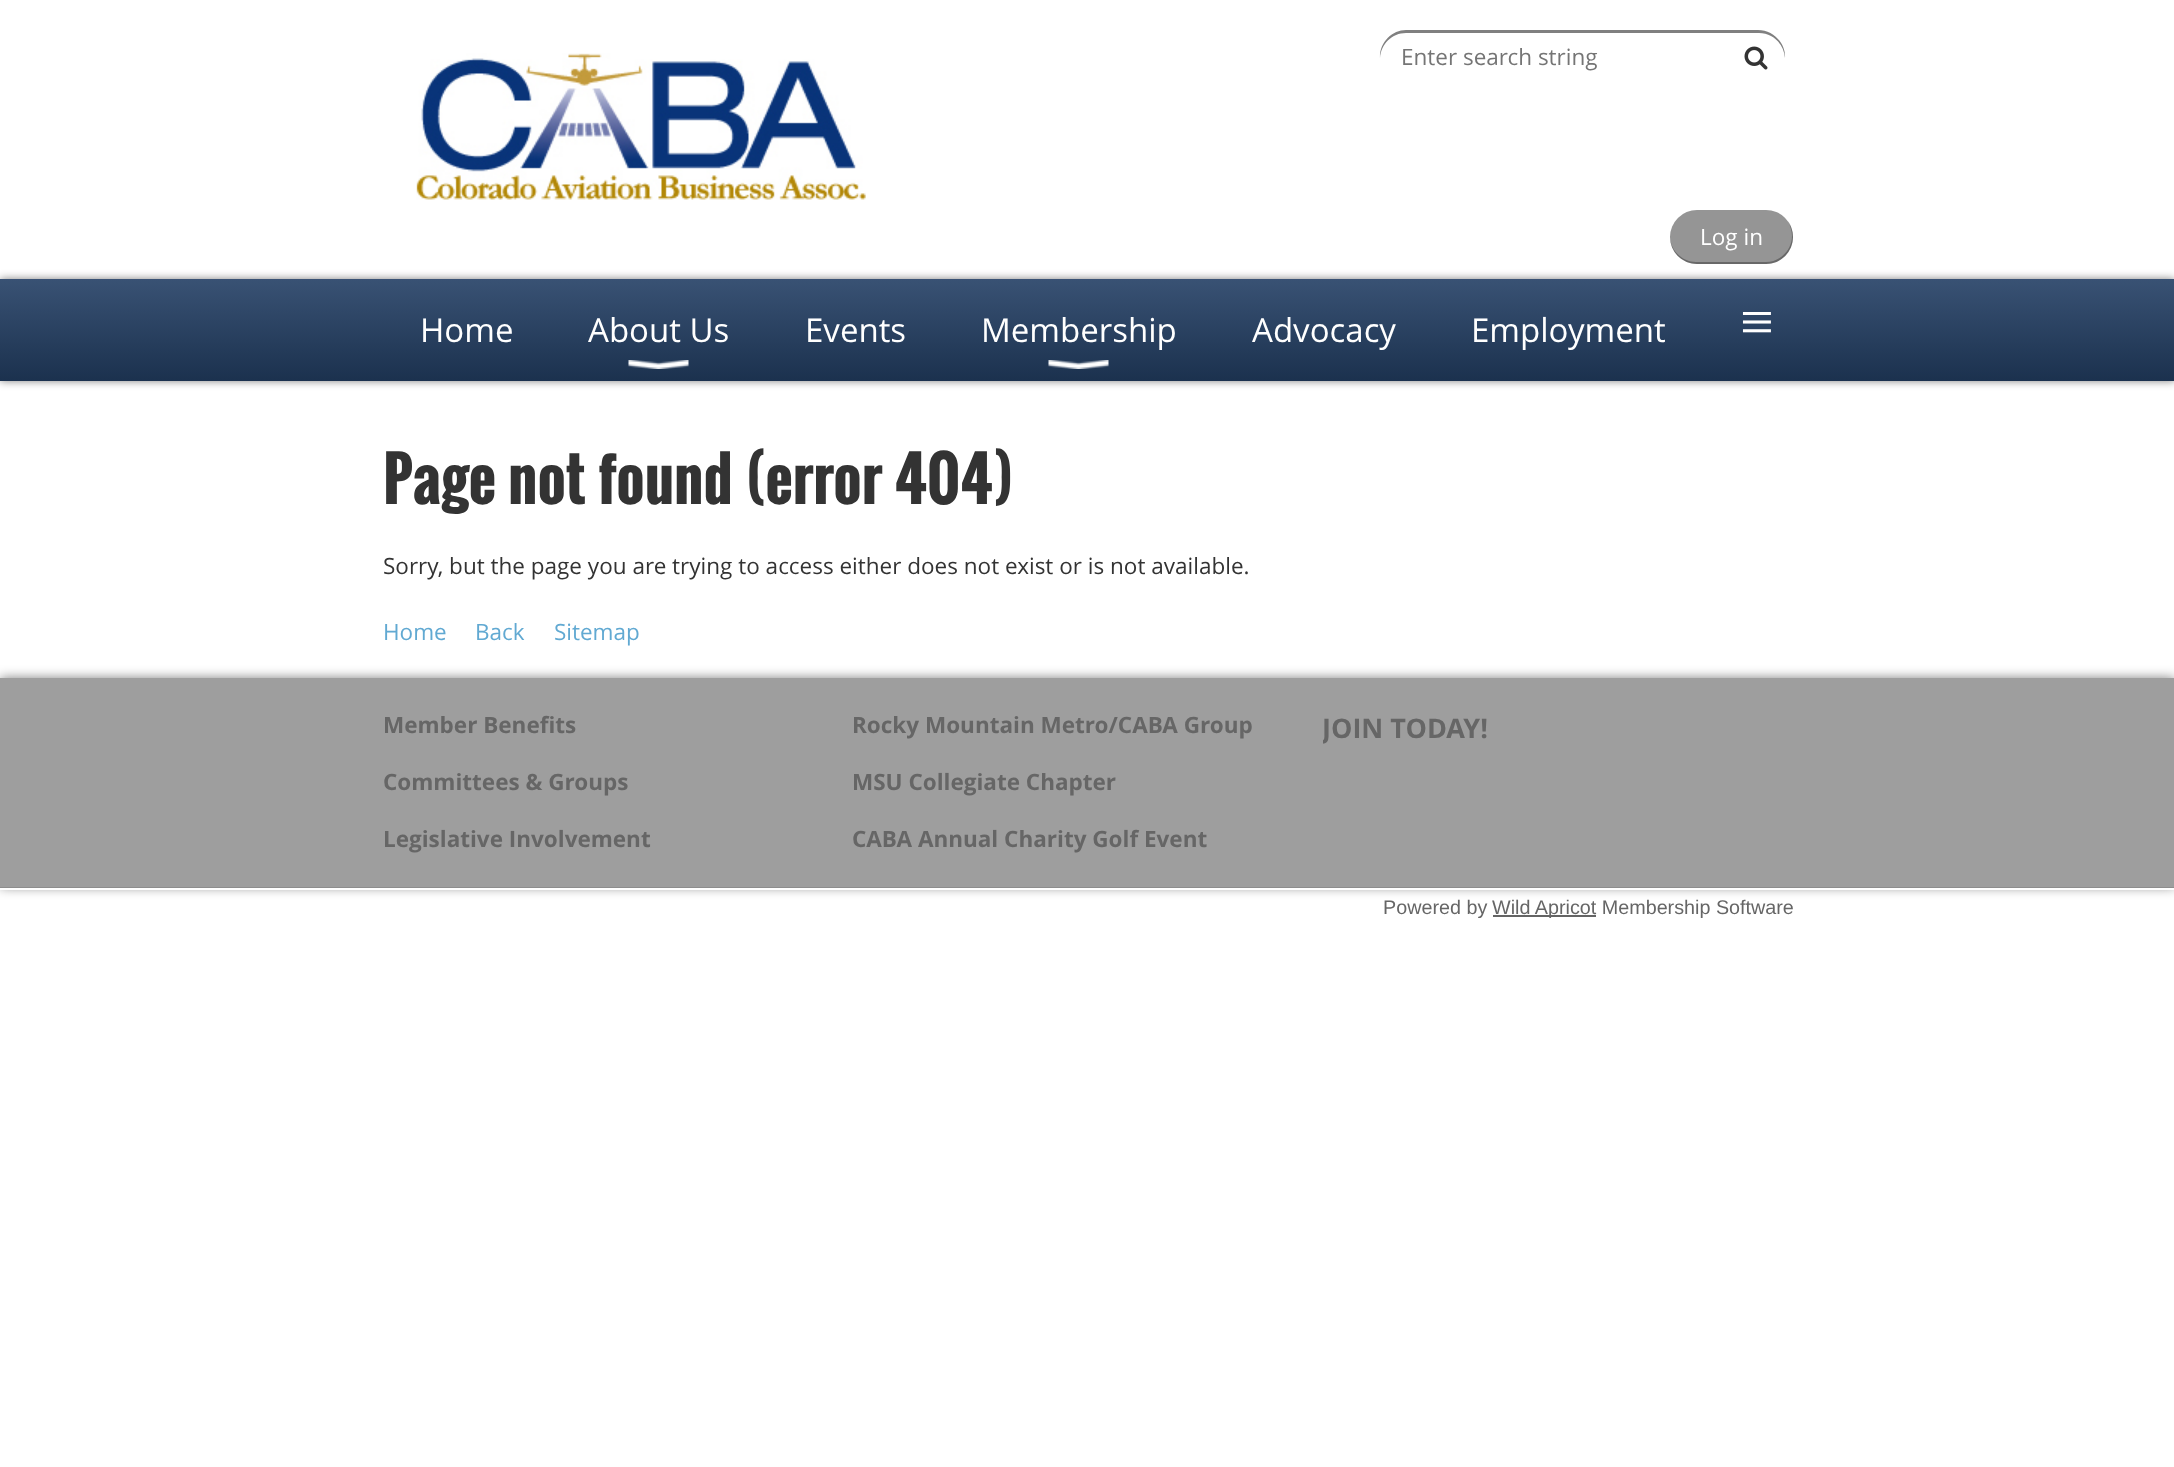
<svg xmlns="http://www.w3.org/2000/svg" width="2174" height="1467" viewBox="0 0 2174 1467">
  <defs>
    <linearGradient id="g1" gradientUnits="userSpaceOnUse" x1="1088" y1="279" x2="1088" y2="381"><stop offset="0" stop-color="#395274"/><stop offset="1" stop-color="#1b314e"/></linearGradient>
    <clipPath id="clip1"><path d="M1323 708h470v41H1323z"/></clipPath>
  </defs>
  <rect width="100%" height="100%" fill="#fff"/>
  <image x="416" y="53" width="450" height="147" href="img/1.png"/>
  <path d="M1406 33H1759C1773 33 1784 44 1785 58C1786 43 1773 30 1758 30H1406C1392 30 1379 43 1380 58C1381 44 1392 33 1406 33Z" fill="#808080"/>
  <image x="1744" y="46" width="24" height="24" href="img/2.png"/>
  <rect x="1670" y="210" width="123" height="54" rx="27" fill="#959595"/>
  <path d="M1670 236V237C1670 252 1682 264 1697 264H1766C1781 264 1793 252 1793 237C1793 231 1791 225 1788 221C1790 225 1792 231 1792 236C1792 250 1780 262 1766 262H1696C1682 262 1670 250 1670 236Z" fill="#0000004d"/>
  <path d="M0 279h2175v102H0z" fill="#00000080" filter="blur(4.5px)"/>
  <path d="M0 279h2174v102H0z" fill="url(#g1)"/>
  <image x="628" y="360" width="61" height="9" href="img/3.png"/>
  <image x="1048" y="360" width="61" height="9" href="img/4.png"/>
  <path d="M0 678h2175v209H0z" fill="#00000080" filter="blur(6px)"/>
  <path d="M0 678h2174v209H0z" fill="#9e9e9e"/>
  <path d="M0 887h2174v1H0z" fill="#8d8d8d"/>
  <path d="M0 888h2174v2H0z" fill="#fff"/>
  <path d="M1493 915h103v2H1493z" fill="#646464"/>
  <text x="1401" y="65" font-family="Open Sans" font-size="22.5" fill="#757575">Enter search string</text>
  <text x="1700" y="245" font-family="Open Sans" font-size="22.5" fill="#fff">Log in</text>
  <g font-family="Open Sans" font-size="33" fill="#fff">
    <text x="420" y="342">Home</text>
    <text x="588" y="342">About Us</text>
    <text x="805" y="342">Events</text>
    <text x="981" y="342">Membership</text>
    <text x="1252" y="342">Advocacy</text>
    <text x="1471" y="342">Employment</text>
  </g>
  <text x="1740" y="342" font-family="Liberation Serif" font-size="60" fill="#fff">≡</text>
  <text x="383" y="504" font-family="Oswald" font-size="60" font-weight="bold" fill="#333">Page not found (error 404)</text>
  <text x="383" y="574" font-family="Open Sans" font-size="22.5" fill="#333">Sorry, but the page you are trying to access either does not exist or is not available.</text>
  <g font-family="Open Sans" font-size="22.5" fill="#61a9d2">
    <text x="383" y="640">Home</text>
    <text x="475" y="640">Back</text>
    <text x="554" y="640">Sitemap</text>
  </g>
  <g font-family="Open Sans" font-size="22.5" font-weight="bold" fill="#666">
    <text x="383" y="733">Member Benefits</text>
    <text x="383" y="790">Committees &amp; Groups</text>
    <text x="383" y="847">Legislative Involvement</text>
    <text x="852" y="733">Rocky Mountain Metro/CABA Group</text>
    <text x="852" y="790">MSU Collegiate Chapter</text>
    <text x="852" y="847">CABA Annual Charity Golf Event</text>
  </g>
  <g clip-path="url(#clip1)">
    <text x="1322" y="738" font-family="Open Sans" font-size="27" font-weight="bold" fill="#666">JOIN TODAY!</text>
  </g>
  <g font-family="Liberation Sans" font-size="19.75" fill="#666">
    <text x="1383" y="914">Powered by</text>
    <text x="1492" y="914">Wild Apricot Membership Software</text>
  </g>
</svg>
